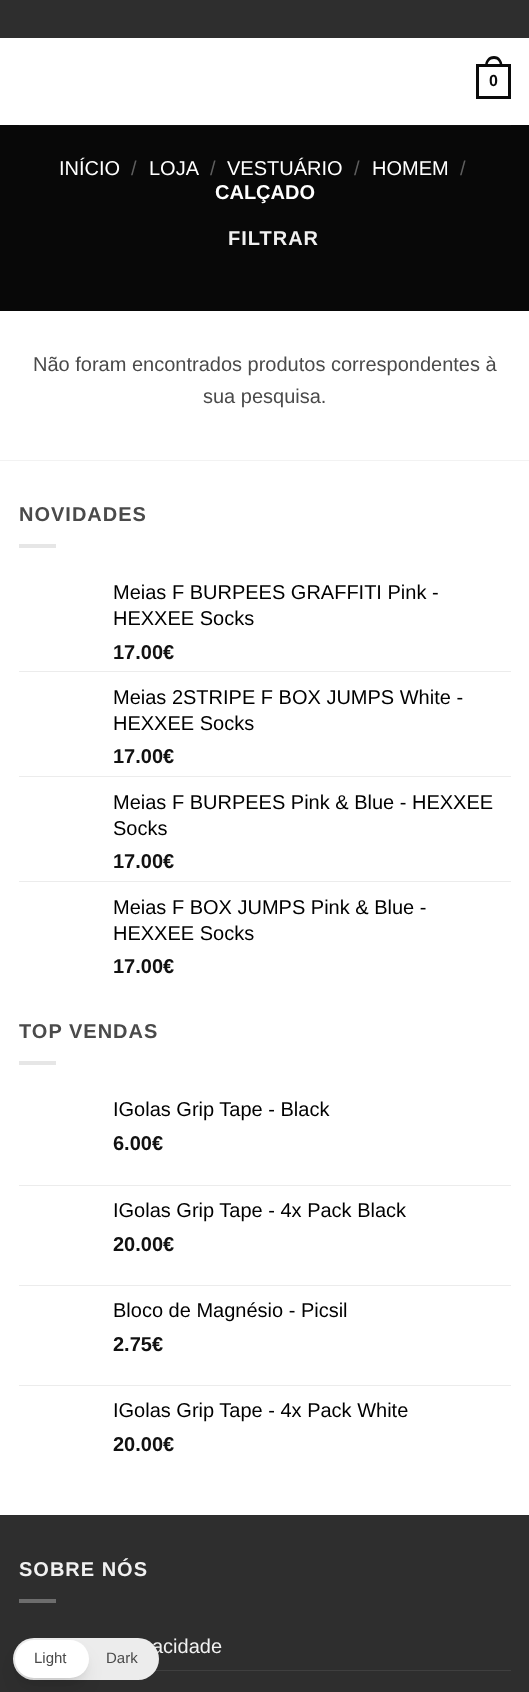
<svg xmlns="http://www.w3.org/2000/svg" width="529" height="1692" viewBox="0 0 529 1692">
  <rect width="100%" height="100%" fill="#fff"/>
  <path d="M0 0h529v38H0z" fill="#2e2e2e"/>
  <path d="M477.5 65.5h32v32H477.5z" fill="none" stroke="#0a0a0a" stroke-width="3"/>
  <path d="M494 56C499.5 56 502.5 61 502.5 66H485C485 61 488 56 494 56ZM494 59C498 59 500 62.5 500 66H487.5C487.5 62.5 489.5 59 494 59Z" fill="#0a0a0a" fill-rule="evenodd"/>
  <path d="M0 125h529v186H0z" fill="#080808"/>
  <path d="M19 125h492v1H19z" fill="#0f0f0f"/>
  <path d="M0 460h529v1H0z" fill="#f2f2f2"/>
  <path d="M19 544h37v4H19z" fill="#e6e6e6"/>
  <path d="M19 671h492v1H19z" fill="#ececec"/>
  <path d="M19 776h492v1H19z" fill="#ececec"/>
  <path d="M19 881h492v1H19z" fill="#ececec"/>
  <path d="M19 1061h37v4H19z" fill="#e6e6e6"/>
  <path d="M19 1185h492v1H19z" fill="#ececec"/>
  <path d="M19 1285h492v1H19z" fill="#ececec"/>
  <path d="M19 1385h492v1H19z" fill="#ececec"/>
  <path d="M0 1516h529v176H0z" fill="#2e2e2e"/>
  <path d="M0 1515h529v1H0z" fill="#2c2c2c"/>
  <path d="M19 1599h37v4H19z" fill="#6d6d6d"/>
  <path d="M155 1670h356v1H155z" fill="#3f3f3f"/>
  <text x="489" y="86" font-family="Liberation Sans" font-size="16" font-weight="bold" fill="#0a0a0a">0</text>
  <text x="59" y="175" font-family="Liberation Sans" font-size="20" fill="#fff">INÍCIO</text>
  <text x="131" y="175" font-family="Liberation Sans" font-size="20" fill="#5e5e5e">/</text>
  <text x="149" y="175" font-family="Liberation Sans" font-size="20" fill="#fff">LOJA</text>
  <text x="210" y="175" font-family="Liberation Sans" font-size="20" fill="#5e5e5e">/</text>
  <text x="227" y="175" font-family="Liberation Sans" font-size="20" fill="#fff">VESTUÁRIO</text>
  <text x="354" y="175" font-family="Liberation Sans" font-size="20" fill="#5e5e5e">/</text>
  <text x="372" y="175" font-family="Liberation Sans" font-size="20" fill="#fff">HOMEM</text>
  <text x="460" y="175" font-family="Liberation Sans" font-size="20" fill="#5e5e5e">/</text>
  <text x="215" y="199" font-family="Liberation Sans" font-size="20" font-weight="bold" fill="#fff">CALÇADO</text>
  <text x="228" y="245" font-family="Liberation Sans" font-size="20" font-weight="bold" letter-spacing="1" fill="#f1f1f1">FILTRAR</text>
  <g font-family="Liberation Sans" font-size="20" fill="#4a4a4a">
    <text x="33" y="371">Não foram encontrados produtos correspondentes à</text>
    <text x="203" y="403">sua pesquisa.</text>
  </g>
  <text x="19" y="521" font-family="Liberation Sans" font-size="20" font-weight="bold" letter-spacing="1" fill="#4a4a4a">NOVIDADES</text>
  <g font-family="Liberation Sans" font-size="20" fill="#000">
    <text x="113" y="599">Meias F BURPEES GRAFFITI Pink -</text>
    <text x="113" y="625">HEXXEE Socks</text>
  </g>
  <text x="113" y="659" font-family="Liberation Sans" font-size="20" font-weight="bold" fill="#111">17.00€</text>
  <g font-family="Liberation Sans" font-size="20" fill="#000">
    <text x="113" y="704">Meias 2STRIPE F BOX JUMPS White -</text>
    <text x="113" y="730">HEXXEE Socks</text>
  </g>
  <text x="113" y="763" font-family="Liberation Sans" font-size="20" font-weight="bold" fill="#111">17.00€</text>
  <g font-family="Liberation Sans" font-size="20" fill="#000">
    <text x="113" y="809">Meias F BURPEES Pink &amp; Blue - HEXXEE</text>
    <text x="113" y="835">Socks</text>
  </g>
  <text x="113" y="868" font-family="Liberation Sans" font-size="20" font-weight="bold" fill="#111">17.00€</text>
  <g font-family="Liberation Sans" font-size="20" fill="#000">
    <text x="113" y="914">Meias F BOX JUMPS Pink &amp; Blue -</text>
    <text x="113" y="940">HEXXEE Socks</text>
  </g>
  <text x="113" y="973" font-family="Liberation Sans" font-size="20" font-weight="bold" fill="#111">17.00€</text>
  <text x="19" y="1038" font-family="Liberation Sans" font-size="20" font-weight="bold" letter-spacing="1" fill="#4a4a4a">TOP VENDAS</text>
  <text x="113" y="1116" font-family="Liberation Sans" font-size="20" fill="#000">IGolas Grip Tape - Black</text>
  <text x="113" y="1150" font-family="Liberation Sans" font-size="20" font-weight="bold" fill="#111">6.00€</text>
  <text x="113" y="1217" font-family="Liberation Sans" font-size="20" fill="#000">IGolas Grip Tape - 4x Pack Black</text>
  <text x="113" y="1251" font-family="Liberation Sans" font-size="20" font-weight="bold" fill="#111">20.00€</text>
  <text x="113" y="1317" font-family="Liberation Sans" font-size="20" fill="#000">Bloco de Magnésio - Picsil</text>
  <text x="113" y="1351" font-family="Liberation Sans" font-size="20" font-weight="bold" fill="#111">2.75€</text>
  <text x="113" y="1417" font-family="Liberation Sans" font-size="20" fill="#000">IGolas Grip Tape - 4x Pack White</text>
  <text x="113" y="1451" font-family="Liberation Sans" font-size="20" font-weight="bold" fill="#111">20.00€</text>
  <text x="19" y="1576" font-family="Liberation Sans" font-size="20" font-weight="bold" letter-spacing="1" fill="#f1f1f1">SOBRE NÓS</text>
  <text x="152" y="1653" font-family="Liberation Sans" font-size="20" fill="#f1f1f1">acidade</text>
  <rect x="13" y="1638" width="146" height="42" rx="21" fill="#ececec"/>
  <rect x="20" y="1650" width="64" height="28" rx="14" fill="#0000001a" filter="blur(4px)"/>
  <rect x="19" y="1656" width="66" height="30" rx="15" fill="#0000001a" filter="blur(9.5px)"/>
  <rect x="15" y="1640" width="74" height="38" rx="19" fill="#fff"/>
  <g font-family="Liberation Sans" font-size="15" fill="#4a4a4a">
    <text x="34" y="1663">Light</text>
    <text x="106" y="1663">Dark</text>
  </g>
</svg>
